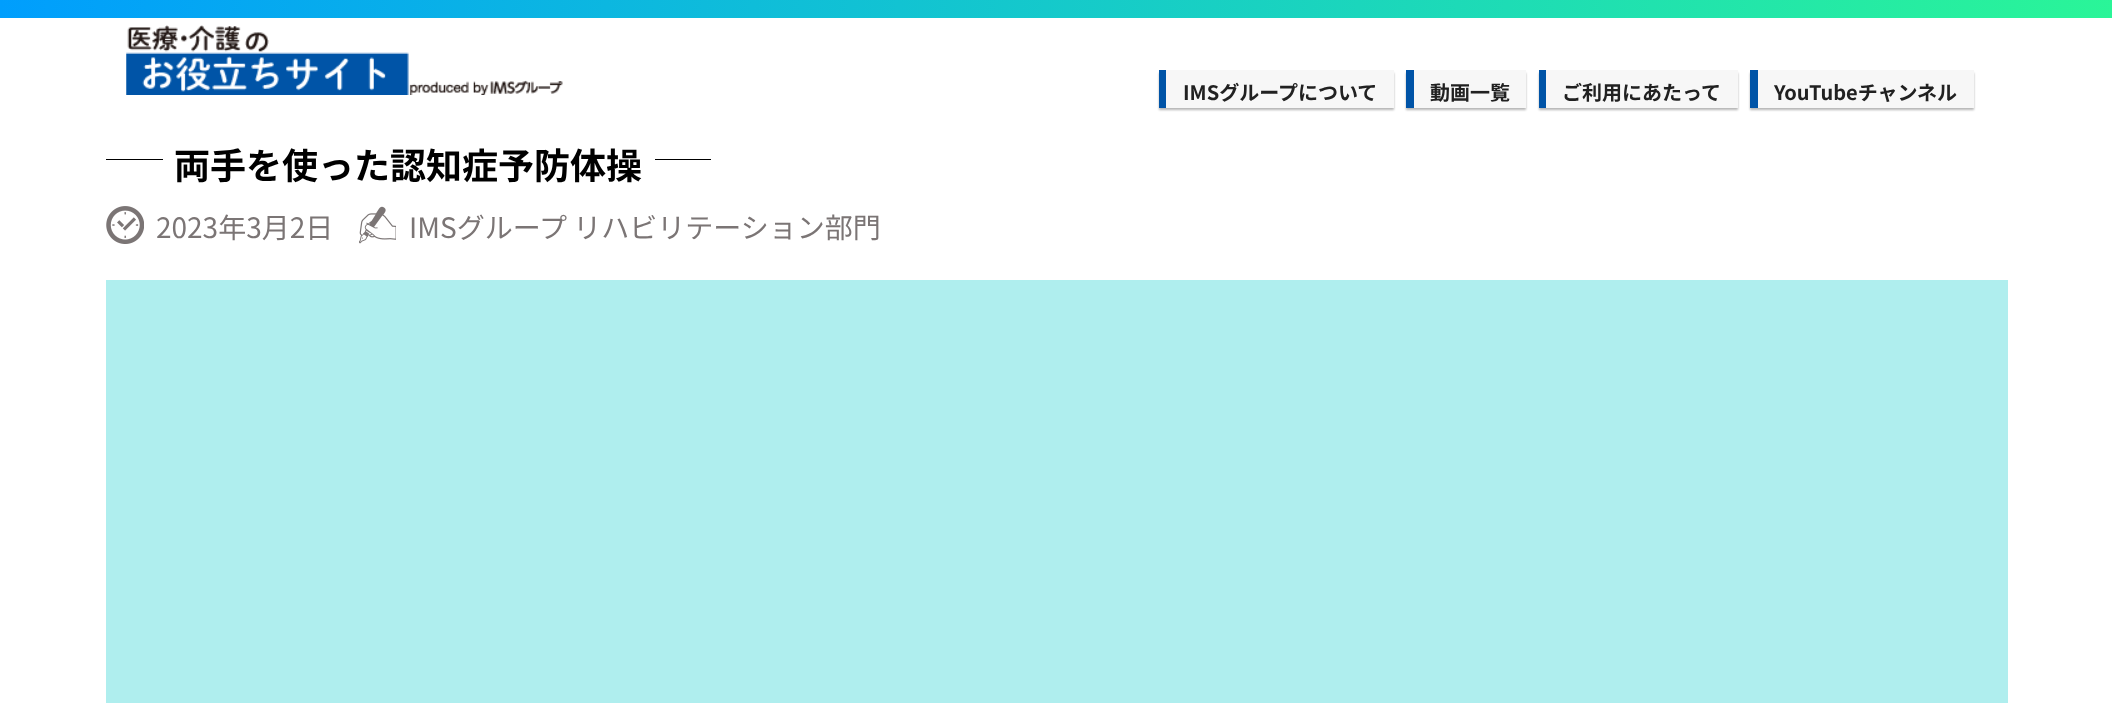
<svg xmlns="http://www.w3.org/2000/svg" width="2112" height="703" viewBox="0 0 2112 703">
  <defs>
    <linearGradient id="g1" gradientUnits="userSpaceOnUse" x1="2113" y1="9" x2="0" y2="9"><stop offset="0" stop-color="#2af598"/><stop offset="1" stop-color="#009efd"/></linearGradient>
  </defs>
  <rect width="100%" height="100%" fill="#fff"/>
  <path d="M0 0h2112v18H0z" fill="url(#g1)"/>
  <image x="126" y="25" width="437" height="70" href="img/1.png"/>
  <path d="M1159 73h235v37H1159z" fill="#0000004a" filter="blur(1px)"/>
  <path d="M1166 70h228v38H1166z" fill="#f7f7f7"/>
  <path d="M1159 70h7v38H1159z" fill="#0054a7"/>
  <path d="M1406 73h120v37H1406z" fill="#0000004a" filter="blur(1px)"/>
  <path d="M1414 70h112v38H1414z" fill="#f7f7f7"/>
  <path d="M1406 70h8v38H1406z" fill="#0054a7"/>
  <path d="M1539 73h199v37H1539z" fill="#0000004a" filter="blur(1px)"/>
  <path d="M1546 70h192v38H1546z" fill="#f7f7f7"/>
  <path d="M1539 70h7v38H1539z" fill="#0054a7"/>
  <path d="M1750 73h224v37H1750z" fill="#0000004a" filter="blur(1px)"/>
  <path d="M1758 70h216v38H1758z" fill="#f7f7f7"/>
  <path d="M1750 70h8v38H1750z" fill="#0054a7"/>
  <path d="M106 159h57v1H106z" fill="#000"/>
  <path d="M655 159h56v1H655z" fill="#000"/>
  <image x="106" y="206" width="38" height="38" href="img/2.png"/>
  <image x="359" y="206" width="37" height="38" href="img/3.png"/>
  <path d="M106 280h1902v423H106z" fill="#afeeee"/>
  <g font-family="Noto Sans JP" font-size="20" font-weight="bold" fill="#212121">
    <text x="1183" y="100">IMSグループについて</text>
    <text x="1430" y="100">動画一覧</text>
    <text x="1562" y="100">ご利用にあたって</text>
    <text x="1774" y="100">YouTubeチャンネル</text>
  </g>
  <text x="174" y="179" font-family="Noto Sans JP" font-size="36" font-weight="bold" fill="#000">両手を使った認知症予防体操</text>
  <g font-family="Noto Sans JP" font-size="28" fill="#7b7575">
    <text x="156" y="238">2023年3月2日</text>
    <text x="409" y="238">IMSグループ リハビリテーション部門</text>
  </g>
</svg>
